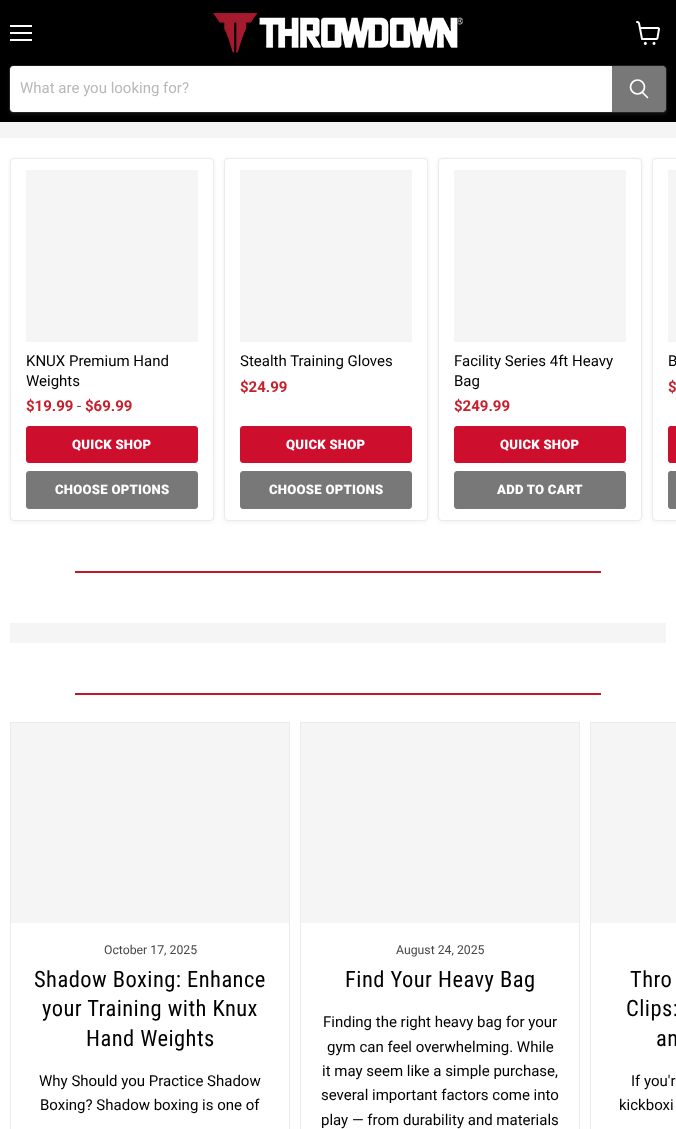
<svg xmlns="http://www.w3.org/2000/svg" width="676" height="1129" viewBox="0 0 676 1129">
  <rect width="100%" height="100%" fill="#fff"/>
  <path d="M0 0h676v122H0z" fill="#000"/>
  <path d="M10 25h22v2H10z" fill="#fff"/>
  <path d="M10 32h22v2H10z" fill="#fff"/>
  <path d="M10 39h22v2H10z" fill="#fff"/>
  <image x="636" y="21" width="24" height="24" href="img/1.png"/>
  <image x="213" y="13" width="250" height="40" href="img/2.png"/>
  <rect x="9" y="67" width="658" height="48" rx="4" fill="#8080801c" filter="blur(1.5px)"/>
  <rect x="9.5" y="65.5" width="657" height="47" rx="3.5" fill="none" stroke="#80808033"/>
  <path d="M13 66H612V112H13C11.5 112 10 110.5 10 109V69C10 67.5 11.5 66 13 66Z" fill="#fff"/>
  <path d="M612.5 66.5H663C664.5 66.5 665.5 67.5 665.5 69V109C665.5 110.5 664.5 111.5 663 111.5H612.5Z" fill="#787878" stroke="#787878"/>
  <path d="M647.5 97.5L642.5 92.5" fill="none" stroke="#fff" stroke-width="1.7" stroke-linecap="round"/>
  <circle cx="637.5" cy="87" r="7" fill="none" stroke="#fff" stroke-width="1.7"/>
  <path d="M0 122h676v16H0z" fill="#f5f5f5"/>
  <rect x="10" y="159" width="204" height="363" rx="4" fill="#8080801c" filter="blur(2px)"/>
  <rect x="10.5" y="158.5" width="203" height="362" rx="3.5" fill="#fff" stroke="#ebebeb"/>
  <path d="M26 170h172v172H26z" fill="#f5f5f5"/>
  <rect x="26.5" y="426.5" width="171" height="36" rx="2.5" fill="#ce0e2d" stroke="#ce0e2d"/>
  <rect x="26.5" y="471.5" width="171" height="37" rx="2.5" fill="#787878" stroke="#787878"/>
  <rect x="224" y="159" width="204" height="363" rx="4" fill="#8080801c" filter="blur(2px)"/>
  <rect x="224.5" y="158.5" width="203" height="362" rx="3.5" fill="#fff" stroke="#ebebeb"/>
  <path d="M240 170h172v172H240z" fill="#f5f5f5"/>
  <rect x="240.5" y="426.5" width="171" height="36" rx="2.5" fill="#ce0e2d" stroke="#ce0e2d"/>
  <rect x="240.5" y="471.5" width="171" height="37" rx="2.5" fill="#787878" stroke="#787878"/>
  <rect x="438" y="159" width="204" height="363" rx="4" fill="#8080801c" filter="blur(2px)"/>
  <rect x="438.5" y="158.5" width="203" height="362" rx="3.5" fill="#fff" stroke="#ebebeb"/>
  <path d="M454 170h172v172H454z" fill="#f5f5f5"/>
  <rect x="454.5" y="426.5" width="171" height="36" rx="2.5" fill="#ce0e2d" stroke="#ce0e2d"/>
  <rect x="454.5" y="471.5" width="171" height="37" rx="2.5" fill="#787878" stroke="#787878"/>
  <rect x="652" y="159" width="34" height="363" rx="4" fill="#8080801c" filter="blur(2px)"/>
  <path d="M656 158H676V521H656C654 521 652 519 652 517V162C652 160 654 158 656 158Z" fill="#fff"/>
  <rect x="652.5" y="158.5" width="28" height="362" rx="3.5" fill="none" stroke="#ebebeb"/>
  <path d="M668 170h8v172H668z" fill="#f5f5f5"/>
  <path d="M671 426H676V463H671C669.5 463 668 461.5 668 460V429C668 427.5 669.5 426 671 426Z" fill="#ce0e2d"/>
  <rect x="668.5" y="426.5" width="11" height="36" rx="2.5" fill="none" stroke="#ce0e2d"/>
  <path d="M671 471H676V509H671C669.5 509 668 507.5 668 506V474C668 472.5 669.5 471 671 471Z" fill="#787878"/>
  <rect x="668.5" y="471.5" width="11" height="37" rx="2.5" fill="none" stroke="#787878"/>
  <path d="M75 571h526v2H75z" fill="#c3182b"/>
  <path d="M10 623h656v20H10z" fill="#f5f5f5"/>
  <path d="M75 693h526v2H75z" fill="#c3182b"/>
  <path d="M10.5 722.5h279v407H10.5z" fill="none" stroke="#ebebeb"/>
  <path d="M11 723h278v200H11z" fill="#f5f5f5"/>
  <path d="M300.5 722.5h279v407H300.5z" fill="none" stroke="#ebebeb"/>
  <path d="M301 723h278v200H301z" fill="#f5f5f5"/>
  <path d="M590.5 722.5h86v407H590.5z" fill="none" stroke="#ebebeb"/>
  <path d="M591 723h85v200H591z" fill="#f5f5f5"/>
  <text x="20" y="93" font-family="Roboto" font-size="15" fill="#b8b8b8">What are you looking for?</text>
  <g font-family="Roboto" font-size="15" fill="#000">
    <text x="26" y="366">KNUX Premium Hand</text>
    <text x="26" y="386">Weights</text>
  </g>
  <text x="26" y="411" font-family="Roboto" font-size="15" font-weight="bold" fill="#c5202d">$19.99</text>
  <text x="77" y="411" font-family="Roboto" font-size="15" fill="#494d41">-</text>
  <text x="85" y="411" font-family="Roboto" font-size="15" font-weight="bold" fill="#c5202d">$69.99</text>
  <g font-family="Roboto" font-size="13.1" font-weight="900" letter-spacing="0.25" fill="#fff">
    <text x="72" y="449">QUICK SHOP</text>
    <text x="55" y="494">CHOOSE OPTIONS</text>
  </g>
  <text x="240" y="366" font-family="Roboto" font-size="15" fill="#000">Stealth Training Gloves</text>
  <text x="240" y="392" font-family="Roboto" font-size="15" font-weight="bold" fill="#c5202d">$24.99</text>
  <g font-family="Roboto" font-size="13.1" font-weight="900" letter-spacing="0.25" fill="#fff">
    <text x="286" y="449">QUICK SHOP</text>
    <text x="269" y="494">CHOOSE OPTIONS</text>
  </g>
  <g font-family="Roboto" font-size="15" fill="#000">
    <text x="454" y="366">Facility Series 4ft Heavy</text>
    <text x="454" y="386">Bag</text>
  </g>
  <text x="454" y="411" font-family="Roboto" font-size="15" font-weight="bold" fill="#c5202d">$249.99</text>
  <g font-family="Roboto" font-size="13.1" font-weight="900" letter-spacing="0.25" fill="#fff">
    <text x="500" y="449">QUICK SHOP</text>
    <text x="497" y="494">ADD TO CART</text>
  </g>
  <text x="668" y="366" font-family="Roboto" font-size="15" fill="#000">B</text>
  <text x="668" y="392" font-family="Roboto" font-size="15" font-weight="bold" fill="#c5202d">$</text>
  <text x="104" y="954" font-family="Roboto" font-size="12.25" fill="#464646">October 17, 2025</text>
  <g font-family="Roboto Condensed" font-size="22.5" letter-spacing="0.45" fill="#000">
    <text x="34" y="987">Shadow Boxing: Enhance</text>
    <text x="42" y="1016">your Training with Knux</text>
    <text x="86" y="1046">Hand Weights</text>
  </g>
  <g font-family="Roboto" font-size="15" fill="#000">
    <text x="39" y="1086">Why Should you Practice Shadow</text>
    <text x="40" y="1110">Boxing? Shadow boxing is one of</text>
  </g>
  <text x="396" y="954" font-family="Roboto" font-size="12.25" fill="#464646">August 24, 2025</text>
  <text x="345" y="987" font-family="Roboto Condensed" font-size="22.5" letter-spacing="0.45" fill="#000">Find Your Heavy Bag</text>
  <g font-family="Roboto" font-size="15" fill="#000">
    <text x="323" y="1027">Finding the right heavy bag for your</text>
    <text x="327" y="1052">gym can feel overwhelming. While</text>
    <text x="322" y="1076">it may seem like a simple purchase,</text>
    <text x="321" y="1100">several important factors come into</text>
    <text x="321" y="1125">play — from durability and materials</text>
  </g>
  <g font-family="Roboto Condensed" font-size="22.5" letter-spacing="0.45" fill="#000">
    <text x="630" y="987">Thro</text>
    <text x="626" y="1016">Clips:</text>
    <text x="656" y="1046">an</text>
  </g>
  <g font-family="Roboto" font-size="15" fill="#000">
    <text x="631" y="1086">If you'r</text>
    <text x="619" y="1110">kickboxi</text>
  </g>
</svg>
